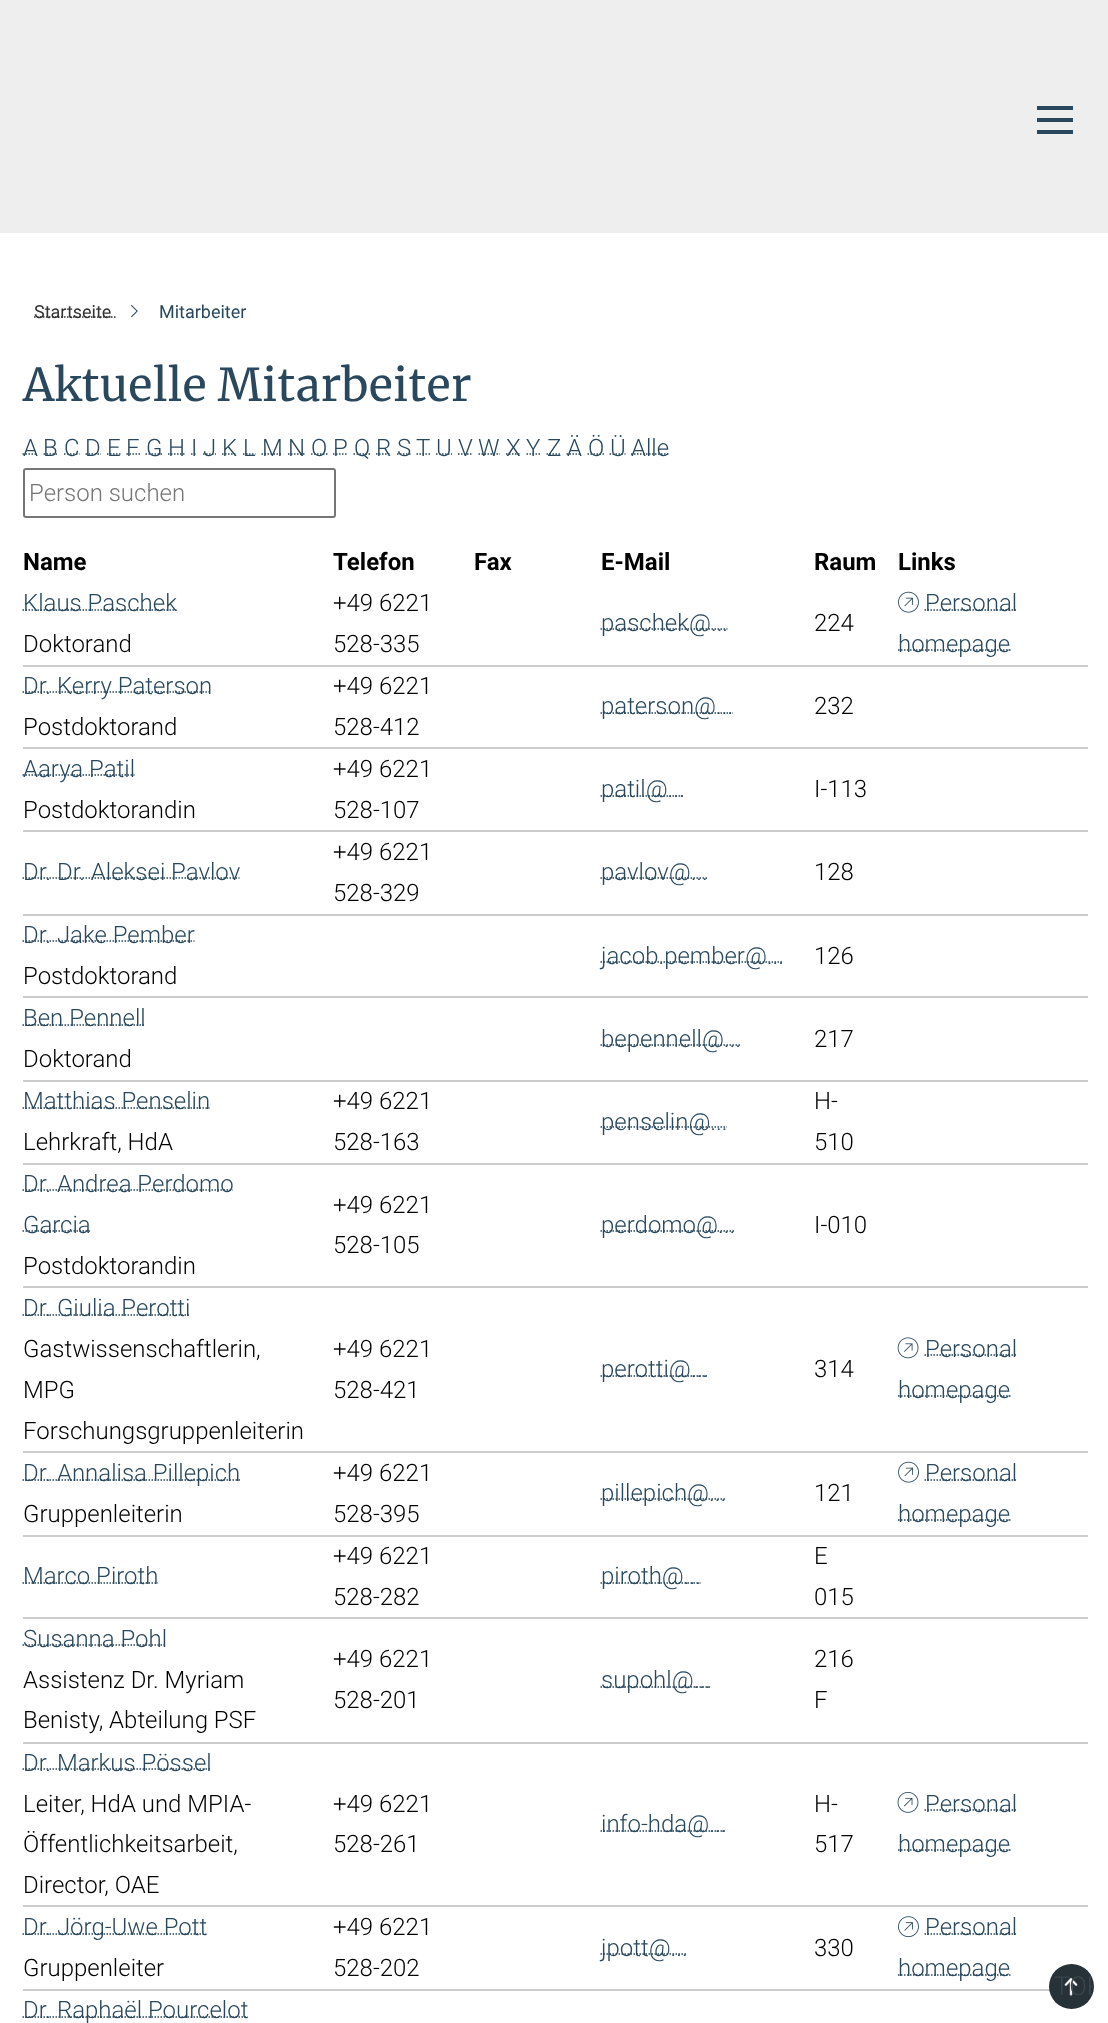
<svg xmlns="http://www.w3.org/2000/svg" width="1108" height="2023" viewBox="0 0 1108 2023">
  <defs>
    <clipPath id="clip1"><rect x="1049" y="1964" width="45" height="45" rx="22.5"/></clipPath>
  </defs>
  <rect width="100%" height="100%" fill="#fff"/>
  <path d="M0 0h1108v233H0z" fill="#eee"/>
  <path d="M1037 106h36v4H1037z" fill="#29485d"/>
  <path d="M1037 118h36v4H1037z" fill="#29485d"/>
  <path d="M1037 130h36v4H1037z" fill="#29485d"/>
  <path d="M34 317H111" fill="none" stroke="#333" stroke-width="1.5" stroke-dasharray="1.5 1.5"/>
  <path d="M111 317H112.5M114 317H115.5" fill="none" stroke="#333" stroke-width="1.5"/>
  <image x="131" y="305" width="7" height="13" href="img/1.png"/>
  <path d="M22.5 454H37.5" fill="none" stroke="#29485d" stroke-width="1.5" stroke-dasharray="1.5 1.5"/>
  <path d="M43.5 454H58" fill="none" stroke="#29485d" stroke-width="1.5" stroke-dasharray="1.5 1.5"/>
  <path d="M64 454H79.5" fill="none" stroke="#29485d" stroke-width="1.5" stroke-dasharray="1.5 1.5"/>
  <path d="M85.5 454H101" fill="none" stroke="#29485d" stroke-width="1.5" stroke-dasharray="1.5 1.5"/>
  <path d="M107 454H120.5" fill="none" stroke="#29485d" stroke-width="1.5" stroke-dasharray="1.5 1.5"/>
  <path d="M126.5 454H140" fill="none" stroke="#29485d" stroke-width="1.5" stroke-dasharray="1.5 1.5"/>
  <path d="M145.5 454H162" fill="none" stroke="#29485d" stroke-width="1.5" stroke-dasharray="1.5 1.5"/>
  <path d="M168 454H185" fill="none" stroke="#29485d" stroke-width="1.5" stroke-dasharray="1.5 1.5"/>
  <path d="M191 454H192.5M194 454H195.5M197 454H197" fill="none" stroke="#29485d" stroke-width="1.5"/>
  <path d="M203 454H216" fill="none" stroke="#29485d" stroke-width="1.5" stroke-dasharray="1.5 1.5"/>
  <path d="M222 454H237" fill="none" stroke="#29485d" stroke-width="1.5" stroke-dasharray="1.5 1.5"/>
  <path d="M243 454H255.5" fill="none" stroke="#29485d" stroke-width="1.5" stroke-dasharray="1.5 1.5"/>
  <path d="M261.5 454H282.5" fill="none" stroke="#29485d" stroke-width="1.5" stroke-dasharray="1.5 1.5"/>
  <path d="M288 454H305" fill="none" stroke="#29485d" stroke-width="1.5" stroke-dasharray="1.5 1.5"/>
  <path d="M311 454H327.5" fill="none" stroke="#29485d" stroke-width="1.5" stroke-dasharray="1.5 1.5"/>
  <path d="M333 454H348" fill="none" stroke="#29485d" stroke-width="1.5" stroke-dasharray="1.5 1.5"/>
  <path d="M353.5 454H370" fill="none" stroke="#29485d" stroke-width="1.5" stroke-dasharray="1.5 1.5"/>
  <path d="M376 454H391" fill="none" stroke="#29485d" stroke-width="1.5" stroke-dasharray="1.5 1.5"/>
  <path d="M397 454H411" fill="none" stroke="#29485d" stroke-width="1.5" stroke-dasharray="1.5 1.5"/>
  <path d="M416.5 454H430.5" fill="none" stroke="#29485d" stroke-width="1.5" stroke-dasharray="1.5 1.5"/>
  <path d="M436 454H452" fill="none" stroke="#29485d" stroke-width="1.5" stroke-dasharray="1.5 1.5"/>
  <path d="M458 454H472.5" fill="none" stroke="#29485d" stroke-width="1.5" stroke-dasharray="1.5 1.5"/>
  <path d="M478.5 454H500" fill="none" stroke="#29485d" stroke-width="1.5" stroke-dasharray="1.5 1.5"/>
  <path d="M506 454H520.5" fill="none" stroke="#29485d" stroke-width="1.5" stroke-dasharray="1.5 1.5"/>
  <path d="M526.5 454H540.5" fill="none" stroke="#29485d" stroke-width="1.5" stroke-dasharray="1.5 1.5"/>
  <path d="M546.5 454H561" fill="none" stroke="#29485d" stroke-width="1.5" stroke-dasharray="1.5 1.5"/>
  <path d="M566.5 454H581.5" fill="none" stroke="#29485d" stroke-width="1.5" stroke-dasharray="1.5 1.5"/>
  <path d="M587.5 454H604" fill="none" stroke="#29485d" stroke-width="1.5" stroke-dasharray="1.5 1.5"/>
  <path d="M609.5 454H625.5" fill="none" stroke="#29485d" stroke-width="1.5" stroke-dasharray="1.5 1.5"/>
  <path d="M631 454H669.5" fill="none" stroke="#29485d" stroke-width="1.5" stroke-dasharray="1.5 1.5"/>
  <rect x="24" y="469" width="311" height="48" rx="2" fill="none" stroke="#767676" stroke-width="2"/>
  <path d="M23 665h1065v2H23z" fill="#ccc"/>
  <path d="M22.5 610H176.5" fill="none" stroke="#29485d" stroke-width="1.5" stroke-dasharray="1.5 1.5"/>
  <path d="M600.5 629H727.5" fill="none" stroke="#29485d" stroke-width="1.5" stroke-dasharray="1.5 1.5"/>
  <image x="898" y="591" width="21" height="22" href="img/2.png"/>
  <path d="M924.5 610H1017" fill="none" stroke="#29485d" stroke-width="1.5" stroke-dasharray="1.5 1.5"/>
  <path d="M898 650H1010.5" fill="none" stroke="#29485d" stroke-width="1.5" stroke-dasharray="1.5 1.5"/>
  <path d="M23 747h1065v2H23z" fill="#ccc"/>
  <path d="M22.5 692H211.5" fill="none" stroke="#29485d" stroke-width="1.5" stroke-dasharray="1.5 1.5"/>
  <path d="M600.5 713H733" fill="none" stroke="#29485d" stroke-width="1.5" stroke-dasharray="1.5 1.5"/>
  <path d="M23 830h1065v2H23z" fill="#ccc"/>
  <path d="M22.5 775H134.5" fill="none" stroke="#29485d" stroke-width="1.5" stroke-dasharray="1.5 1.5"/>
  <path d="M600.5 796H684.5" fill="none" stroke="#29485d" stroke-width="1.5" stroke-dasharray="1.5 1.5"/>
  <path d="M23 914h1065v2H23z" fill="#ccc"/>
  <path d="M22.5 878H239.5" fill="none" stroke="#29485d" stroke-width="1.5" stroke-dasharray="1.5 1.5"/>
  <path d="M600.5 878H707.5" fill="none" stroke="#29485d" stroke-width="1.5" stroke-dasharray="1.5 1.5"/>
  <path d="M23 996h1065v2H23z" fill="#ccc"/>
  <path d="M22.5 941H194.5" fill="none" stroke="#29485d" stroke-width="1.5" stroke-dasharray="1.5 1.5"/>
  <path d="M600.5 962H783.5" fill="none" stroke="#29485d" stroke-width="1.5" stroke-dasharray="1.5 1.5"/>
  <path d="M23 1080h1065v2H23z" fill="#ccc"/>
  <path d="M22.5 1025H145" fill="none" stroke="#29485d" stroke-width="1.5" stroke-dasharray="1.5 1.5"/>
  <path d="M600.5 1045H740.5" fill="none" stroke="#29485d" stroke-width="1.5" stroke-dasharray="1.5 1.5"/>
  <path d="M23 1163h1065v2H23z" fill="#ccc"/>
  <path d="M22.5 1108H209.5" fill="none" stroke="#29485d" stroke-width="1.5" stroke-dasharray="1.5 1.5"/>
  <path d="M600.5 1127H727" fill="none" stroke="#29485d" stroke-width="1.5" stroke-dasharray="1.5 1.5"/>
  <path d="M23 1286h1065v2H23z" fill="#ccc"/>
  <path d="M22.5 1190H233" fill="none" stroke="#29485d" stroke-width="1.5" stroke-dasharray="1.5 1.5"/>
  <path d="M22.5 1231H90" fill="none" stroke="#29485d" stroke-width="1.5" stroke-dasharray="1.5 1.5"/>
  <path d="M600.5 1231H735" fill="none" stroke="#29485d" stroke-width="1.5" stroke-dasharray="1.5 1.5"/>
  <path d="M23 1451h1065v2H23z" fill="#ccc"/>
  <path d="M22.5 1315H190" fill="none" stroke="#29485d" stroke-width="1.5" stroke-dasharray="1.5 1.5"/>
  <path d="M600.5 1376H707.5" fill="none" stroke="#29485d" stroke-width="1.5" stroke-dasharray="1.5 1.5"/>
  <image x="897" y="1337" width="22" height="22" href="img/3.png"/>
  <path d="M924.5 1355H1017" fill="none" stroke="#29485d" stroke-width="1.5" stroke-dasharray="1.5 1.5"/>
  <path d="M898 1396H1010.5" fill="none" stroke="#29485d" stroke-width="1.5" stroke-dasharray="1.5 1.5"/>
  <path d="M23 1535h1065v2H23z" fill="#ccc"/>
  <path d="M22.5 1480H240" fill="none" stroke="#29485d" stroke-width="1.5" stroke-dasharray="1.5 1.5"/>
  <path d="M600.5 1499H726" fill="none" stroke="#29485d" stroke-width="1.5" stroke-dasharray="1.5 1.5"/>
  <image x="898" y="1461" width="21" height="22" href="img/4.png"/>
  <path d="M924.5 1480H1017" fill="none" stroke="#29485d" stroke-width="1.5" stroke-dasharray="1.5 1.5"/>
  <path d="M898 1520H1010.5" fill="none" stroke="#29485d" stroke-width="1.5" stroke-dasharray="1.5 1.5"/>
  <path d="M23 1617h1065v2H23z" fill="#ccc"/>
  <path d="M22.5 1583H158" fill="none" stroke="#29485d" stroke-width="1.5" stroke-dasharray="1.5 1.5"/>
  <path d="M600.5 1583H700.5" fill="none" stroke="#29485d" stroke-width="1.5" stroke-dasharray="1.5 1.5"/>
  <path d="M23 1742h1065v2H23z" fill="#ccc"/>
  <path d="M22.5 1645H166.5" fill="none" stroke="#29485d" stroke-width="1.5" stroke-dasharray="1.5 1.5"/>
  <path d="M600.5 1687H710.5" fill="none" stroke="#29485d" stroke-width="1.5" stroke-dasharray="1.5 1.5"/>
  <path d="M23 1905h1065v2H23z" fill="#ccc"/>
  <path d="M22.5 1769H211" fill="none" stroke="#29485d" stroke-width="1.5" stroke-dasharray="1.5 1.5"/>
  <path d="M600.5 1831H726" fill="none" stroke="#29485d" stroke-width="1.5" stroke-dasharray="1.5 1.5"/>
  <image x="897" y="1792" width="22" height="21" href="img/5.png"/>
  <path d="M924.5 1810H1017" fill="none" stroke="#29485d" stroke-width="1.5" stroke-dasharray="1.5 1.5"/>
  <path d="M898 1850H1010.5" fill="none" stroke="#29485d" stroke-width="1.5" stroke-dasharray="1.5 1.5"/>
  <path d="M23 1989h1027v2H23z" fill="#ccc"/>
  <path d="M22.5 1934H206.5" fill="none" stroke="#29485d" stroke-width="1.5" stroke-dasharray="1.5 1.5"/>
  <path d="M600.5 1954H687.5" fill="none" stroke="#29485d" stroke-width="1.5" stroke-dasharray="1.5 1.5"/>
  <image x="898" y="1916" width="21" height="22" href="img/6.png"/>
  <path d="M924.5 1934H1017" fill="none" stroke="#29485d" stroke-width="1.5" stroke-dasharray="1.5 1.5"/>
  <path d="M898 1975H1010.5" fill="none" stroke="#29485d" stroke-width="1.5" stroke-dasharray="1.5 1.5"/>
  <path d="M22.5 2017H248" fill="none" stroke="#29485d" stroke-width="1.5" stroke-dasharray="1.5 1.5"/>
  <circle cx="1071.5" cy="1986.5" r="22.5" fill="#263238"/>
  <image x="1064" y="1977" width="14" height="19" href="img/7.png"/>
  <text x="34" y="318" font-family="Roboto" font-size="18" fill="#333">Startseite</text>
  <text x="159" y="318" font-family="Roboto" font-size="18" fill="#29485d">Mitarbeiter</text>
  <text x="23" y="401" font-family="Merriweather" font-size="45" fill="#29485d">Aktuelle Mitarbeiter</text>
  <g font-family="Roboto" font-size="24" font-weight="300" fill="#29485d">
    <text x="23" y="456">A</text>
    <text x="43" y="456">B</text>
    <text x="64" y="456">C</text>
    <text x="85" y="456">D</text>
    <text x="107" y="456">E</text>
    <text x="126" y="456">F</text>
    <text x="146" y="456">G</text>
    <text x="168" y="456">H</text>
    <text x="191" y="456">I</text>
    <text x="203" y="456">J</text>
    <text x="222" y="456">K</text>
    <text x="243" y="456">L</text>
    <text x="262" y="456">M</text>
    <text x="288" y="456">N</text>
    <text x="311" y="456">O</text>
    <text x="333" y="456">P</text>
    <text x="354" y="456">Q</text>
    <text x="376" y="456">R</text>
    <text x="397" y="456">S</text>
    <text x="416" y="456">T</text>
    <text x="436" y="456">U</text>
    <text x="458" y="456">V</text>
    <text x="478" y="456">W</text>
    <text x="506" y="456">X</text>
    <text x="526" y="456">Y</text>
    <text x="547" y="456">Z</text>
    <text x="567" y="456">Ä</text>
    <text x="588" y="456">Ö</text>
    <text x="610" y="456">Ü</text>
    <text x="631" y="456">Alle</text>
  </g>
  <text x="29" y="501" font-family="Roboto" font-size="24" font-weight="300" fill="#757575">Person suchen</text>
  <g font-family="Roboto" font-size="24" font-weight="bold" fill="#000">
    <text x="23" y="570">Name</text>
    <text x="333" y="570">Telefon</text>
    <text x="474" y="570">Fax</text>
    <text x="601" y="570">E-Mail</text>
    <text x="814" y="570">Raum</text>
    <text x="898" y="570">Links</text>
  </g>
  <text x="23" y="611" font-family="Roboto" font-size="24" font-weight="300" fill="#29485d">Klaus Paschek</text>
  <g font-family="Roboto" font-size="24" font-weight="300" fill="#000">
    <text x="23" y="652">Doktorand</text>
    <text x="333" y="611">+49 6221</text>
    <text x="333" y="652">528-335</text>
  </g>
  <text x="601" y="631" font-family="Roboto" font-size="24" font-weight="300" fill="#29485d">paschek@...</text>
  <text x="814" y="631" font-family="Roboto" font-size="24" font-weight="300" fill="#000">224</text>
  <g font-family="Roboto" font-size="24" font-weight="300" fill="#29485d">
    <text x="925" y="611">Personal</text>
    <text x="898" y="652">homepage</text>
    <text x="23" y="694">Dr. Kerry Paterson</text>
  </g>
  <g font-family="Roboto" font-size="24" font-weight="300" fill="#000">
    <text x="23" y="735">Postdoktorand</text>
    <text x="333" y="694">+49 6221</text>
    <text x="333" y="735">528-412</text>
  </g>
  <text x="601" y="714" font-family="Roboto" font-size="24" font-weight="300" fill="#29485d">paterson@...</text>
  <text x="814" y="714" font-family="Roboto" font-size="24" font-weight="300" fill="#000">232</text>
  <text x="23" y="777" font-family="Roboto" font-size="24" font-weight="300" fill="#29485d">Aarya Patil</text>
  <g font-family="Roboto" font-size="24" font-weight="300" fill="#000">
    <text x="23" y="818">Postdoktorandin</text>
    <text x="333" y="777">+49 6221</text>
    <text x="333" y="818">528-107</text>
  </g>
  <text x="601" y="797" font-family="Roboto" font-size="24" font-weight="300" fill="#29485d">patil@...</text>
  <text x="814" y="797" font-family="Roboto" font-size="24" font-weight="300" fill="#000">I-113</text>
  <text x="23" y="880" font-family="Roboto" font-size="24" font-weight="300" fill="#29485d">Dr. Dr. Aleksei Pavlov</text>
  <g font-family="Roboto" font-size="24" font-weight="300" fill="#000">
    <text x="333" y="860">+49 6221</text>
    <text x="333" y="901">528-329</text>
  </g>
  <text x="601" y="880" font-family="Roboto" font-size="24" font-weight="300" fill="#29485d">pavlov@...</text>
  <text x="814" y="880" font-family="Roboto" font-size="24" font-weight="300" fill="#000">128</text>
  <text x="23" y="943" font-family="Roboto" font-size="24" font-weight="300" fill="#29485d">Dr. Jake Pember</text>
  <text x="23" y="984" font-family="Roboto" font-size="24" font-weight="300" fill="#000">Postdoktorand</text>
  <text x="601" y="964" font-family="Roboto" font-size="24" font-weight="300" fill="#29485d">jacob.pember@...</text>
  <text x="814" y="964" font-family="Roboto" font-size="24" font-weight="300" fill="#000">126</text>
  <text x="23" y="1026" font-family="Roboto" font-size="24" font-weight="300" fill="#29485d">Ben Pennell</text>
  <text x="23" y="1067" font-family="Roboto" font-size="24" font-weight="300" fill="#000">Doktorand</text>
  <text x="601" y="1047" font-family="Roboto" font-size="24" font-weight="300" fill="#29485d">bepennell@...</text>
  <text x="814" y="1047" font-family="Roboto" font-size="24" font-weight="300" fill="#000">217</text>
  <text x="23" y="1109" font-family="Roboto" font-size="24" font-weight="300" fill="#29485d">Matthias Penselin</text>
  <g font-family="Roboto" font-size="24" font-weight="300" fill="#000">
    <text x="23" y="1150">Lehrkraft, HdA</text>
    <text x="333" y="1109">+49 6221</text>
    <text x="333" y="1150">528-163</text>
  </g>
  <text x="601" y="1130" font-family="Roboto" font-size="24" font-weight="300" fill="#29485d">penselin@...</text>
  <g font-family="Roboto" font-size="24" font-weight="300" fill="#000">
    <text x="814" y="1109">H-</text>
    <text x="814" y="1150">510</text>
  </g>
  <g font-family="Roboto" font-size="24" font-weight="300" fill="#29485d">
    <text x="23" y="1192">Dr. Andrea Perdomo</text>
    <text x="23" y="1233">Garcia</text>
  </g>
  <g font-family="Roboto" font-size="24" font-weight="300" fill="#000">
    <text x="23" y="1274">Postdoktorandin</text>
    <text x="333" y="1213">+49 6221</text>
    <text x="333" y="1253">528-105</text>
  </g>
  <text x="601" y="1233" font-family="Roboto" font-size="24" font-weight="300" fill="#29485d">perdomo@...</text>
  <text x="814" y="1233" font-family="Roboto" font-size="24" font-weight="300" fill="#000">I-010</text>
  <text x="23" y="1316" font-family="Roboto" font-size="24" font-weight="300" fill="#29485d">Dr. Giulia Perotti</text>
  <g font-family="Roboto" font-size="24" font-weight="300" fill="#000">
    <text x="23" y="1357">Gastwissenschaftlerin,</text>
    <text x="23" y="1398">MPG</text>
    <text x="23" y="1439">Forschungsgruppenleiterin</text>
    <text x="333" y="1357">+49 6221</text>
    <text x="333" y="1398">528-421</text>
  </g>
  <text x="601" y="1377" font-family="Roboto" font-size="24" font-weight="300" fill="#29485d">perotti@...</text>
  <text x="814" y="1377" font-family="Roboto" font-size="24" font-weight="300" fill="#000">314</text>
  <g font-family="Roboto" font-size="24" font-weight="300" fill="#29485d">
    <text x="925" y="1357">Personal</text>
    <text x="898" y="1398">homepage</text>
    <text x="23" y="1481">Dr. Annalisa Pillepich</text>
  </g>
  <g font-family="Roboto" font-size="24" font-weight="300" fill="#000">
    <text x="23" y="1522">Gruppenleiterin</text>
    <text x="333" y="1481">+49 6221</text>
    <text x="333" y="1522">528-395</text>
  </g>
  <text x="601" y="1501" font-family="Roboto" font-size="24" font-weight="300" fill="#29485d">pillepich@...</text>
  <text x="814" y="1501" font-family="Roboto" font-size="24" font-weight="300" fill="#000">121</text>
  <g font-family="Roboto" font-size="24" font-weight="300" fill="#29485d">
    <text x="925" y="1481">Personal</text>
    <text x="898" y="1522">homepage</text>
    <text x="23" y="1584">Marco Piroth</text>
  </g>
  <g font-family="Roboto" font-size="24" font-weight="300" fill="#000">
    <text x="333" y="1564">+49 6221</text>
    <text x="333" y="1605">528-282</text>
  </g>
  <text x="601" y="1584" font-family="Roboto" font-size="24" font-weight="300" fill="#29485d">piroth@...</text>
  <g font-family="Roboto" font-size="24" font-weight="300" fill="#000">
    <text x="814" y="1564">E</text>
    <text x="814" y="1605">015</text>
  </g>
  <text x="23" y="1647" font-family="Roboto" font-size="24" font-weight="300" fill="#29485d">Susanna Pohl</text>
  <g font-family="Roboto" font-size="24" font-weight="300" fill="#000">
    <text x="23" y="1688">Assistenz Dr. Myriam</text>
    <text x="23" y="1728">Benisty, Abteilung PSF</text>
    <text x="333" y="1667">+49 6221</text>
    <text x="333" y="1708">528-201</text>
  </g>
  <text x="601" y="1688" font-family="Roboto" font-size="24" font-weight="300" fill="#29485d">supohl@...</text>
  <g font-family="Roboto" font-size="24" font-weight="300" fill="#000">
    <text x="814" y="1667">216</text>
    <text x="814" y="1708">F</text>
  </g>
  <text x="23" y="1771" font-family="Roboto" font-size="24" font-weight="300" fill="#29485d">Dr. Markus Pössel</text>
  <g font-family="Roboto" font-size="24" font-weight="300" fill="#000">
    <text x="23" y="1812">Leiter, HdA und MPIA-</text>
    <text x="23" y="1852">Öffentlichkeitsarbeit,</text>
    <text x="23" y="1893">Director, OAE</text>
    <text x="333" y="1812">+49 6221</text>
    <text x="333" y="1852">528-261</text>
  </g>
  <text x="601" y="1832" font-family="Roboto" font-size="24" font-weight="300" fill="#29485d">info-hda@...</text>
  <g font-family="Roboto" font-size="24" font-weight="300" fill="#000">
    <text x="814" y="1812">H-</text>
    <text x="814" y="1852">517</text>
  </g>
  <g font-family="Roboto" font-size="24" font-weight="300" fill="#29485d">
    <text x="925" y="1812">Personal</text>
    <text x="898" y="1852">homepage</text>
    <text x="23" y="1935">Dr. Jörg-Uwe Pott</text>
  </g>
  <g font-family="Roboto" font-size="24" font-weight="300" fill="#000">
    <text x="23" y="1976">Gruppenleiter</text>
    <text x="333" y="1935">+49 6221</text>
    <text x="333" y="1976">528-202</text>
  </g>
  <text x="601" y="1956" font-family="Roboto" font-size="24" font-weight="300" fill="#29485d">jpott@...</text>
  <text x="814" y="1956" font-family="Roboto" font-size="24" font-weight="300" fill="#000">330</text>
  <g font-family="Roboto" font-size="24" font-weight="300" fill="#29485d">
    <text x="925" y="1935">Personal</text>
    <text x="898" y="1976">homepage</text>
    <text x="23" y="2018">Dr. Raphaël Pourcelot</text>
  </g>
  <g clip-path="url(#clip1)">
    <text x="1054" y="1995" font-family="Roboto" font-size="26" font-weight="300" fill="#3b454b">TOP</text>
  </g>
</svg>
